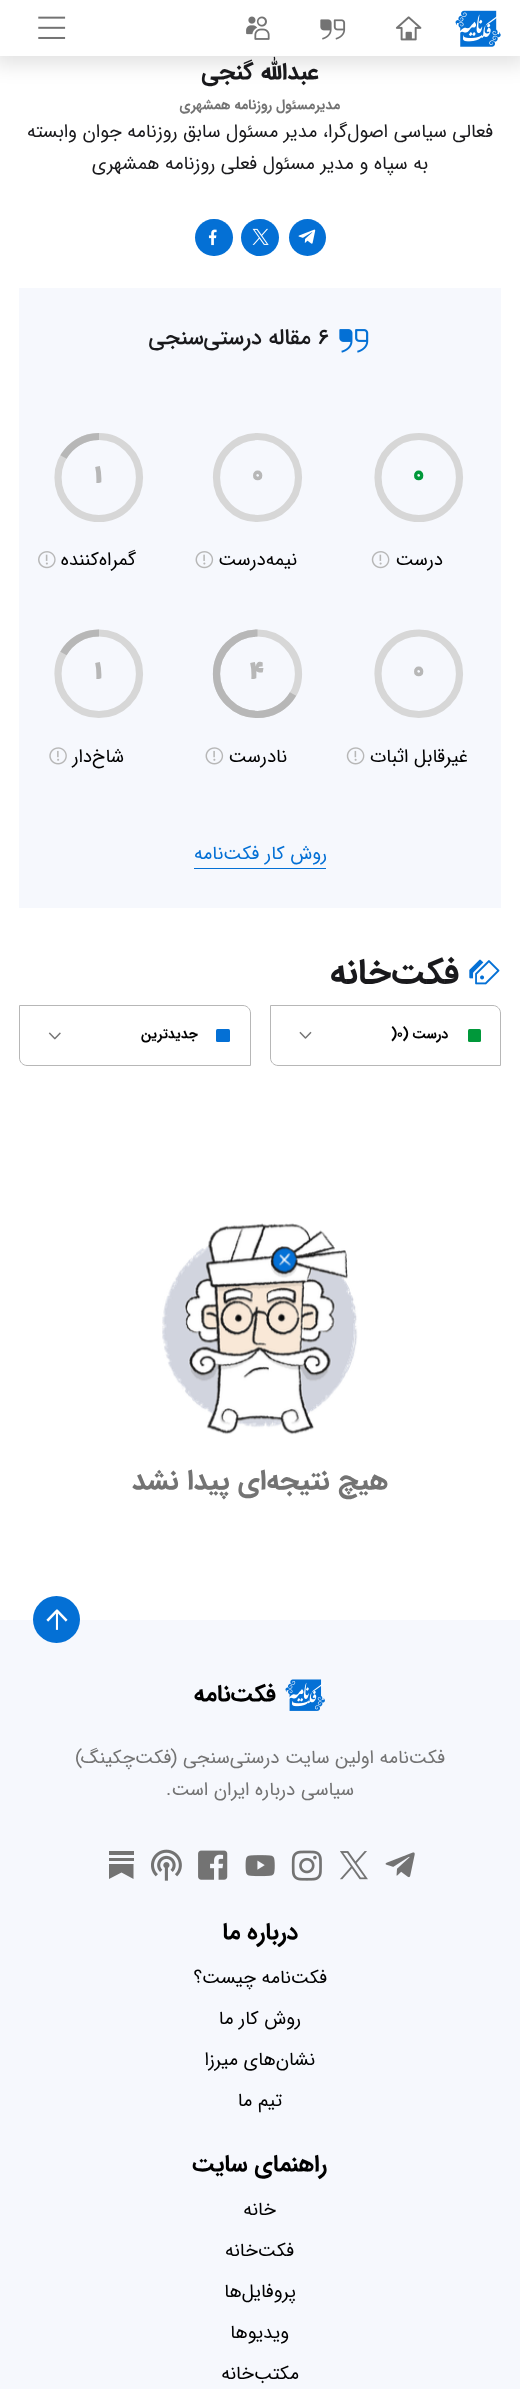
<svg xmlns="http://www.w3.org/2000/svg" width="520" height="2389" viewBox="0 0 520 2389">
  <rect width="100%" height="100%" fill="#fff"/>
  <path d="M-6 -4h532v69H-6z" fill="#0000001c" filter="blur(9.5px)"/>
  <path d="M0 0h520v56H0z" fill="#fff"/>
  <image x="455" y="10" width="46" height="37" href="img/1.png"/>
  <image x="395" y="16" width="27" height="25" href="img/2.png"/>
  <image x="320" y="19" width="26" height="21" href="img/3.png"/>
  <image x="246" y="16" width="24" height="24" href="img/4.png"/>
  <image x="38" y="16" width="28" height="23" href="img/5.png"/>
  <circle cx="307.5" cy="237.5" r="18.5" fill="#0470d5"/>
  <image x="298" y="229" width="18" height="15" href="img/6.png"/>
  <rect x="241" y="219" width="38" height="37" rx="18.5" fill="#0470d5"/>
  <image x="252" y="228" width="17" height="17" href="img/7.png"/>
  <rect x="195" y="219" width="38" height="37" rx="18.5" fill="#0470d5"/>
  <image x="208" y="229" width="9" height="17" href="img/8.png"/>
  <path d="M19 288h482v620H19z" fill="#f6f8fd"/>
  <image x="339" y="329" width="30" height="24" href="img/9.png"/>
  <path d="M419 436.5C396 436.5 378 455 378 477.5C378 500 396 518.5 419 518.5C441.5 518.5 459.5 500 459.5 477.5C459.5 455 441.5 436.5 419 436.5" fill="none" stroke="#d7d7d7" stroke-width="7.2"/>
  <path d="M419 436.5C396 436.5 378 455 378 477.5C378 500 396 518.5 419 518.5C441.5 518.5 459.5 500 459.5 477.5C459.5 455 441.5 436.5 419 436.5" fill="none" stroke="#00983a" stroke-width="7.2" stroke-dasharray="0 257.16"/>
  <image x="371" y="551" width="19" height="18" href="img/10.png"/>
  <path d="M257.5 436.5C235 436.5 216.5 455 216.5 477.5C216.5 500 235 518.5 257.5 518.5C280 518.5 298.5 500 298.5 477.5C298.5 455 280 436.5 257.5 436.5" fill="none" stroke="#d7d7d7" stroke-width="7.2"/>
  <path d="M257.5 436.5C235 436.5 216.5 455 216.5 477.5C216.5 500 235 518.5 257.5 518.5C280 518.5 298.5 500 298.5 477.5C298.5 455 280 436.5 257.5 436.5" fill="none" stroke="#b7b7b7" stroke-width="7.2" stroke-dasharray="0 257.16"/>
  <image x="195" y="551" width="19" height="18" href="img/11.png"/>
  <path d="M99 436.5C76 436.5 58 455 58 477.5C58 500 76 518.5 99 518.5C121.5 518.5 139.5 500 139.5 477.5C139.5 455 121.5 436.5 99 436.5" fill="none" stroke="#d7d7d7" stroke-width="7.2"/>
  <path d="M99 436.5C83.5 436.5 70.5 445 63.5 457" fill="none" stroke="#b7b7b7" stroke-width="7.2"/>
  <image x="38" y="551" width="18" height="18" href="img/12.png"/>
  <path d="M419 633C396 633 378 651 378 674C378 696.5 396 714.5 419 714.5C441.5 714.5 459.5 696.5 459.5 674C459.5 651 441.5 633 419 633" fill="none" stroke="#d7d7d7" stroke-width="7.2"/>
  <path d="M419 633C396 633 378 651 378 674C378 696.5 396 714.5 419 714.5C441.5 714.5 459.5 696.5 459.5 674C459.5 651 441.5 633 419 633" fill="none" stroke="#b7b7b7" stroke-width="7.2" stroke-dasharray="0 257.16"/>
  <image x="346" y="747" width="19" height="18" href="img/13.png"/>
  <path d="M257.5 633C235 633 216.5 651 216.5 674C216.5 696.5 235 714.5 257.5 714.5C280 714.5 298.5 696.5 298.5 674C298.5 651 280 633 257.5 633" fill="none" stroke="#d7d7d7" stroke-width="7.2"/>
  <path d="M257.5 633C235 633 216.5 651 216.5 674C216.5 696.5 235 714.5 257.5 714.5C272.5 714.5 286 706.5 293 694" fill="none" stroke="#b7b7b7" stroke-width="7.2"/>
  <image x="205" y="747" width="19" height="18" href="img/14.png"/>
  <path d="M99 633C76 633 58 651 58 674C58 696.5 76 714.5 99 714.5C121.5 714.5 139.5 696.5 139.5 674C139.5 651 121.5 633 99 633" fill="none" stroke="#d7d7d7" stroke-width="7.2"/>
  <path d="M99 633C83.5 633 70.5 641 63.5 653.5" fill="none" stroke="#b7b7b7" stroke-width="7.2"/>
  <image x="49" y="747" width="18" height="18" href="img/15.png"/>
  <path d="M194 868h132v1H194z" fill="#0470d5"/>
  <image x="469" y="959" width="31" height="26" href="img/16.png"/>
  <path d="M270.5 1005.5H493C497 1005.5 500.5 1009 500.5 1013V1065.5H278C274 1065.5 270.5 1062 270.5 1058Z" fill="none" stroke="#b7b7b7"/>
  <rect x="468" y="1029" width="13" height="13" rx="1.5" fill="#00983a"/>
  <image x="299" y="1031" width="13" height="8" href="img/17.png"/>
  <path d="M19.5 1005.5H243C247 1005.5 250.5 1009 250.5 1013V1065.5H27C23 1065.5 19.5 1062 19.5 1058Z" fill="none" stroke="#b7b7b7"/>
  <rect x="216" y="1029" width="14" height="13" rx="1.5" fill="#0470d5"/>
  <image x="48" y="1032" width="13" height="8" href="img/18.png"/>
  <image x="162" y="1223" width="196" height="212" href="img/19.png"/>
  <path d="M0 1620h520v769H0z" fill="#f6f8fd"/>
  <circle cx="56.5" cy="1619.5" r="23.5" fill="#0470d5"/>
  <image x="46" y="1609" width="22" height="21" href="img/20.png"/>
  <image x="285" y="1679" width="40" height="32" href="img/21.png"/>
  <image x="385" y="1852" width="30" height="26" href="img/22.png"/>
  <image x="340" y="1851" width="28" height="29" href="img/23.png"/>
  <image x="291" y="1850" width="31" height="31" href="img/24.png"/>
  <image x="245" y="1855" width="30" height="22" href="img/25.png"/>
  <image x="198" y="1850" width="30" height="30" href="img/26.png"/>
  <image x="151" y="1849" width="31" height="32" href="img/27.png"/>
  <path d="M109 1858h25v3H109z" fill="#737373"/>
  <path d="M109 1864V1879L121.5 1872.5L133.5 1879V1864Z" fill="#737373"/>
  <path d="M109 1851h25v4H109z" fill="#737373"/>
  <text x="319" y="79" font-family="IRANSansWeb" font-size="23.5" font-weight="bold" direction="rtl" fill="#19191c">عبدالله گنجی</text>
  <text x="340" y="109" font-family="IRANSansWeb" font-size="14" font-weight="bold" direction="rtl" fill="#737373">مدیرمسئول روزنامه همشهری</text>
  <g font-family="IRANSansWeb" font-size="18.75" direction="rtl" fill="#19191c">
    <text x="493" y="137">فعالی سیاسی اصول‌گرا، مدیر مسئول سابق روزنامه جوان وابسته</text>
    <text x="428" y="169">به سپاه و مدیر مسئول فعلی روزنامه همشهری</text>
  </g>
  <text x="318" y="344" font-family="IRANSansWeb" font-size="22" font-weight="500" fill="#19191c">۶</text>
  <text x="311" y="344" font-family="IRANSansWeb" font-size="22" font-weight="500" direction="rtl" fill="#19191c">مقاله درستی‌سنجی</text>
  <text x="413" y="483" font-family="Lalezar" font-size="30" fill="#00983a">۰</text>
  <text x="443" y="565" font-family="IRANSansWeb" font-size="18.75" direction="rtl" fill="#000">درست</text>
  <text x="252" y="483" font-family="Lalezar" font-size="30" fill="#b7b7b7">۰</text>
  <text x="297" y="565" font-family="IRANSansWeb" font-size="18.75" direction="rtl" fill="#000">نیمه‌درست</text>
  <text x="94" y="483" font-family="Lalezar" font-size="30" fill="#b7b7b7">۱</text>
  <text x="136" y="565" font-family="IRANSansWeb" font-size="18.75" direction="rtl" fill="#000">گمراه‌کننده</text>
  <text x="413" y="679" font-family="Lalezar" font-size="30" fill="#b7b7b7">۰</text>
  <text x="468" y="762" font-family="IRANSansWeb" font-size="18.75" direction="rtl" fill="#000">غیر‌قابل اثبات</text>
  <text x="249" y="679" font-family="Lalezar" font-size="30" fill="#b7b7b7">۴</text>
  <text x="287" y="762" font-family="IRANSansWeb" font-size="18.75" direction="rtl" fill="#000">نادرست</text>
  <text x="94" y="679" font-family="Lalezar" font-size="30" fill="#b7b7b7">۱</text>
  <text x="124" y="762" font-family="IRANSansWeb" font-size="18.75" direction="rtl" fill="#000">شاخ‌دار</text>
  <text x="327" y="859" font-family="IRANSansWeb" font-size="18.75" direction="rtl" fill="#0470d5">روش کار فکت‌نامه</text>
  <text x="459" y="983" font-family="IRANSansWeb" font-size="35" font-weight="bold" direction="rtl" fill="#19191c">فکت‌خانه</text>
  <text x="448" y="1038" font-family="IRANSansWeb" font-size="14" font-weight="bold" direction="rtl" fill="#000">درست (</text>
  <text x="391" y="1038" font-family="IRANSansWeb" font-size="14" font-weight="bold" fill="#000">)۰</text>
  <text x="198" y="1038" font-family="IRANSansWeb" font-size="14" font-weight="bold" direction="rtl" fill="#000">جدیدترین</text>
  <text x="388" y="1489" font-family="IRANSansWeb" font-size="28.1" font-weight="bold" direction="rtl" fill="#737373">هیچ نتیجه‌ای پیدا نشد</text>
  <text x="276" y="1701" font-family="IRANSansWeb" font-size="23.5" font-weight="bold" direction="rtl" fill="#000">فکت‌نامه</text>
  <g font-family="IRANSansWeb" font-size="18.75" direction="rtl" fill="#737373">
    <text x="445" y="1763">فکت‌نامه اولین سایت درستی‌سنجی (فکت‌چکینگ)</text>
    <text x="354" y="1795">سیاسی درباره ایران است.</text>
  </g>
  <text x="298" y="1939" font-family="IRANSansWeb" font-size="23.5" font-weight="bold" direction="rtl" fill="#000">درباره ما</text>
  <g font-family="IRANSansWeb" font-size="18.75" direction="rtl" fill="#000">
    <text x="327" y="1983">فکت‌نامه چیست؟</text>
    <text x="301" y="2024">روش کار ما</text>
    <text x="315" y="2065">نشان‌های میرزا</text>
    <text x="282" y="2106">تیم ما</text>
  </g>
  <text x="327" y="2171" font-family="IRANSansWeb" font-size="23.5" font-weight="bold" direction="rtl" fill="#000">راهنمای سایت</text>
  <g font-family="IRANSansWeb" font-size="18.75" direction="rtl" fill="#000">
    <text x="276" y="2215">خانه</text>
    <text x="294" y="2256">فکت‌خانه</text>
    <text x="296" y="2297">پروفایل‌ها</text>
    <text x="289" y="2338">ویدیو‌ها</text>
    <text x="299" y="2379">مکتب‌خانه</text>
  </g>
</svg>
